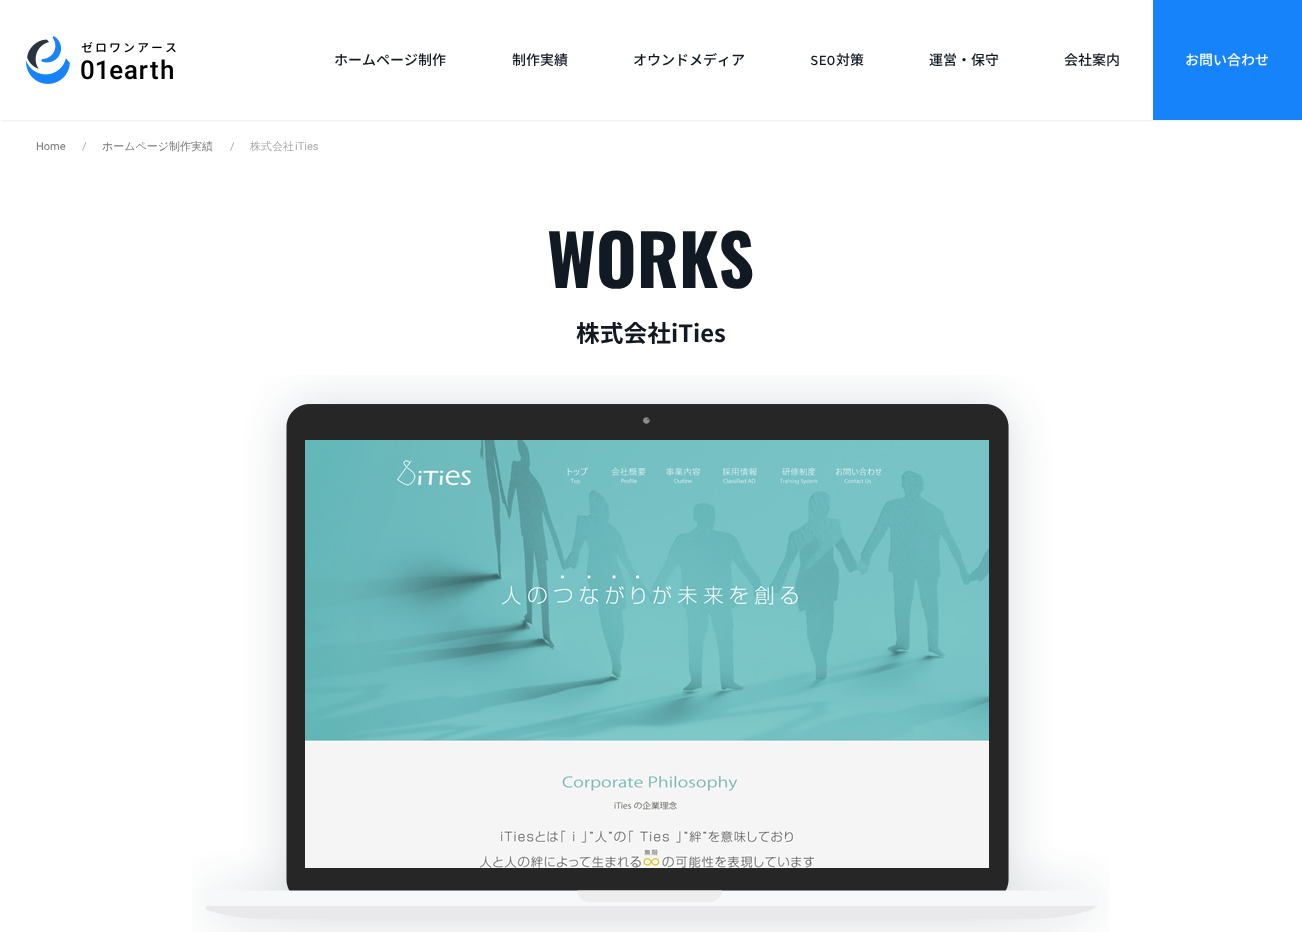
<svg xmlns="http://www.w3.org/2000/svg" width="1302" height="932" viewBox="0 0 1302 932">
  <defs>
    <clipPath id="clip1"><path d="M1 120h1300v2H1z"/></clipPath>
  </defs>
  <rect width="100%" height="100%" fill="#fff"/>
  <g clip-path="url(#clip1)">
    <path d="M1 3h1300v118H1z" fill="#00000012" filter="blur(1px)"/>
  </g>
  <image x="26" y="36" width="150" height="48" href="img/1.png"/>
  <path d="M1153 0h149v120H1153z" fill="#1683fb"/>
  <image x="192" y="375" width="917" height="557" href="img/2.png"/>
  <image x="305" y="440" width="684" height="428" href="img/3.png"/>
  <g font-family="Noto Sans CJK JP" font-size="14" font-weight="500" fill="#111922">
    <text x="334" y="65">ホームページ制作</text>
    <text x="512" y="65">制作実績</text>
    <text x="633" y="65">オウンドメディア</text>
  </g>
  <text x="810" y="65" font-family="Source Code Pro" font-size="14" font-weight="500" fill="#111922">SEO</text>
  <g font-family="Noto Sans CJK JP" font-size="14" font-weight="500" fill="#111922">
    <text x="836" y="65">対策</text>
    <text x="929" y="65">運営・保守</text>
    <text x="1064" y="65">会社案内</text>
  </g>
  <text x="1185" y="65" font-family="Noto Sans CJK JP" font-size="14" font-weight="500" fill="#fff">お問い合わせ</text>
  <text x="36" y="150" font-family="Roboto" font-size="11" fill="#777">Home</text>
  <text x="82" y="150" font-family="Roboto" font-size="11" fill="#aaa">/</text>
  <text x="102" y="150" font-family="WenQuanYi Zen Hei" font-size="11" font-weight="500" fill="#777">ホームページ制作実績</text>
  <text x="230" y="150" font-family="Roboto" font-size="11" fill="#aaa">/</text>
  <text x="250" y="150" font-family="WenQuanYi Zen Hei" font-size="11" font-weight="500" fill="#aaa">株式会社</text>
  <text x="295" y="150" font-family="Roboto" font-size="11" fill="#aaa">iTies</text>
  <text x="547" y="288" font-family="Oswald" font-size="70" font-weight="bold" fill="#111922">WORKS</text>
  <text x="576" y="342" font-family="Noto Sans CJK JP" font-size="23.75" font-weight="bold" fill="#111922">株式会社iTies</text>
</svg>
